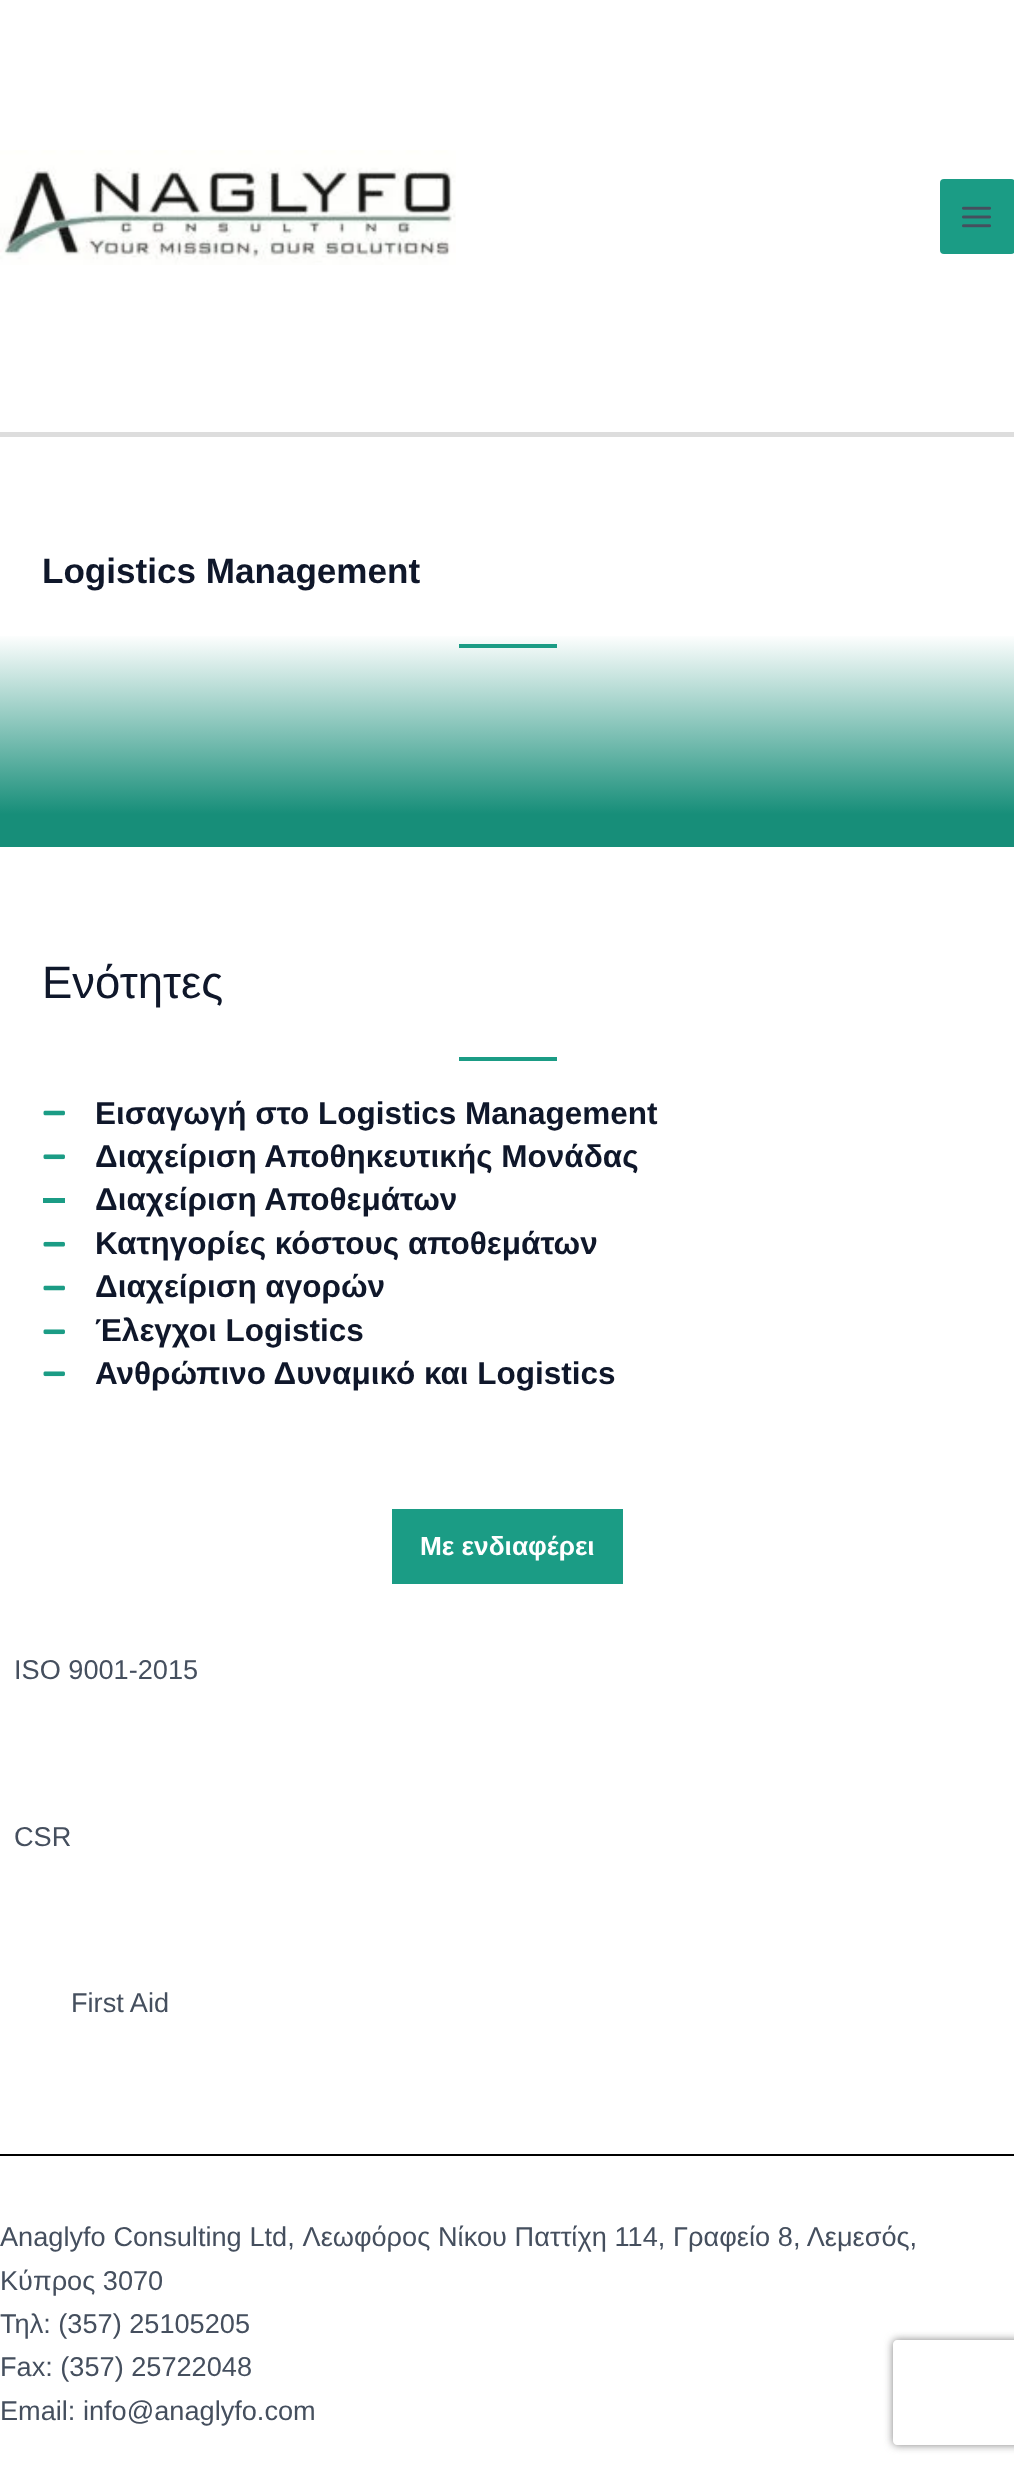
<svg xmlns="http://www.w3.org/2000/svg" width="1014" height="2469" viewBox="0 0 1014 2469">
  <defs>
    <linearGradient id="g1" gradientUnits="userSpaceOnUse" x1="508" y1="437" x2="508" y2="847"><stop offset="0.48" stop-color="#fff"/><stop offset="0.92" stop-color="#178e79"/></linearGradient>
    <clipPath id="clip1"><path d="M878 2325H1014V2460H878ZM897 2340H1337C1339 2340 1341 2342 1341 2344V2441C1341 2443 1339 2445 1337 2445H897C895 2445 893 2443 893 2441V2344C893 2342 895 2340 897 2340Z" clip-rule="evenodd"/></clipPath>
  </defs>
  <rect width="100%" height="100%" fill="#fff"/>
  <path d="M0 432h1014v5H0z" fill="#ddd"/>
  <image x="0" y="150" width="456" height="115" href="img/1.png"/>
  <rect x="940" y="179" width="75" height="75" rx="4" fill="#1b9c85"/>
  <image x="962" y="206" width="29" height="22" href="img/2.png"/>
  <path d="M0 636h1014v211H0z" fill="url(#g1)"/>
  <path d="M459 644h98v4H459z" fill="#1b9c85"/>
  <path d="M459 1057h98v4H459z" fill="#1b9c85"/>
  <image x="43" y="1110" width="22" height="6" href="img/3.png"/>
  <image x="43" y="1154" width="22" height="6" href="img/4.png"/>
  <path d="M43 1198h22v5H43z" fill="#1b9c85"/>
  <image x="43" y="1241" width="22" height="6" href="img/5.png"/>
  <image x="43" y="1285" width="22" height="6" href="img/3.png"/>
  <image x="43" y="1329" width="22" height="6" href="img/4.png"/>
  <image x="43" y="1371" width="22" height="6" href="img/4.png"/>
  <path d="M392 1509h231v75H392z" fill="#1b9c85"/>
  <path d="M0 2154h1014v2H0z" fill="#000"/>
  <g clip-path="url(#clip1)">
    <rect x="893" y="2340" width="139" height="105" rx="4" fill="#808080" filter="blur(4.5px)"/>
  </g>
  <text x="42" y="583" font-family="Liberation Sans" font-size="35.1" font-weight="bold" fill="#0f172a">Logistics Management</text>
  <text x="42" y="998" font-family="Liberation Sans" font-size="45.5" fill="#0f172a">Ενότητες</text>
  <g font-family="Liberation Sans" font-size="31.5" font-weight="bold" fill="#0f172a">
    <text x="95" y="1124">Εισαγωγή στο Logistics Management</text>
    <text x="95" y="1167">Διαχείριση Αποθηκευτικής Μονάδας</text>
    <text x="95" y="1210">Διαχείριση Αποθεμάτων</text>
    <text x="95" y="1254">Κατηγορίες κόστους αποθεμάτων</text>
    <text x="95" y="1297">Διαχείριση αγορών</text>
    <text x="95" y="1341">Έλεγχοι Logistics</text>
    <text x="95" y="1384">Ανθρώπινο Δυναμικό και Logistics</text>
  </g>
  <text x="420" y="1555" font-family="Liberation Sans" font-size="26.25" font-weight="bold" fill="#fff">Με ενδιαφέρει</text>
  <g font-family="Liberation Sans" font-size="27.15" fill="#454f5e">
    <text x="14" y="1679">ISO 9001-2015</text>
    <text x="14" y="1846">CSR</text>
    <text x="71" y="2012">First Aid</text>
    <text x="0" y="2246" word-spacing="0.25">Anaglyfo Consulting Ltd, Λεωφόρος Νίκου Παττίχη 114, Γραφείο 8, Λεμεσός,</text>
    <text x="0" y="2290">Κύπρος 3070</text>
    <text x="0" y="2333">Τηλ: (357) 25105205</text>
    <text x="0" y="2376">Fax: (357) 25722048</text>
    <text x="0" y="2420">Email: info@anaglyfo.com</text>
  </g>
</svg>
